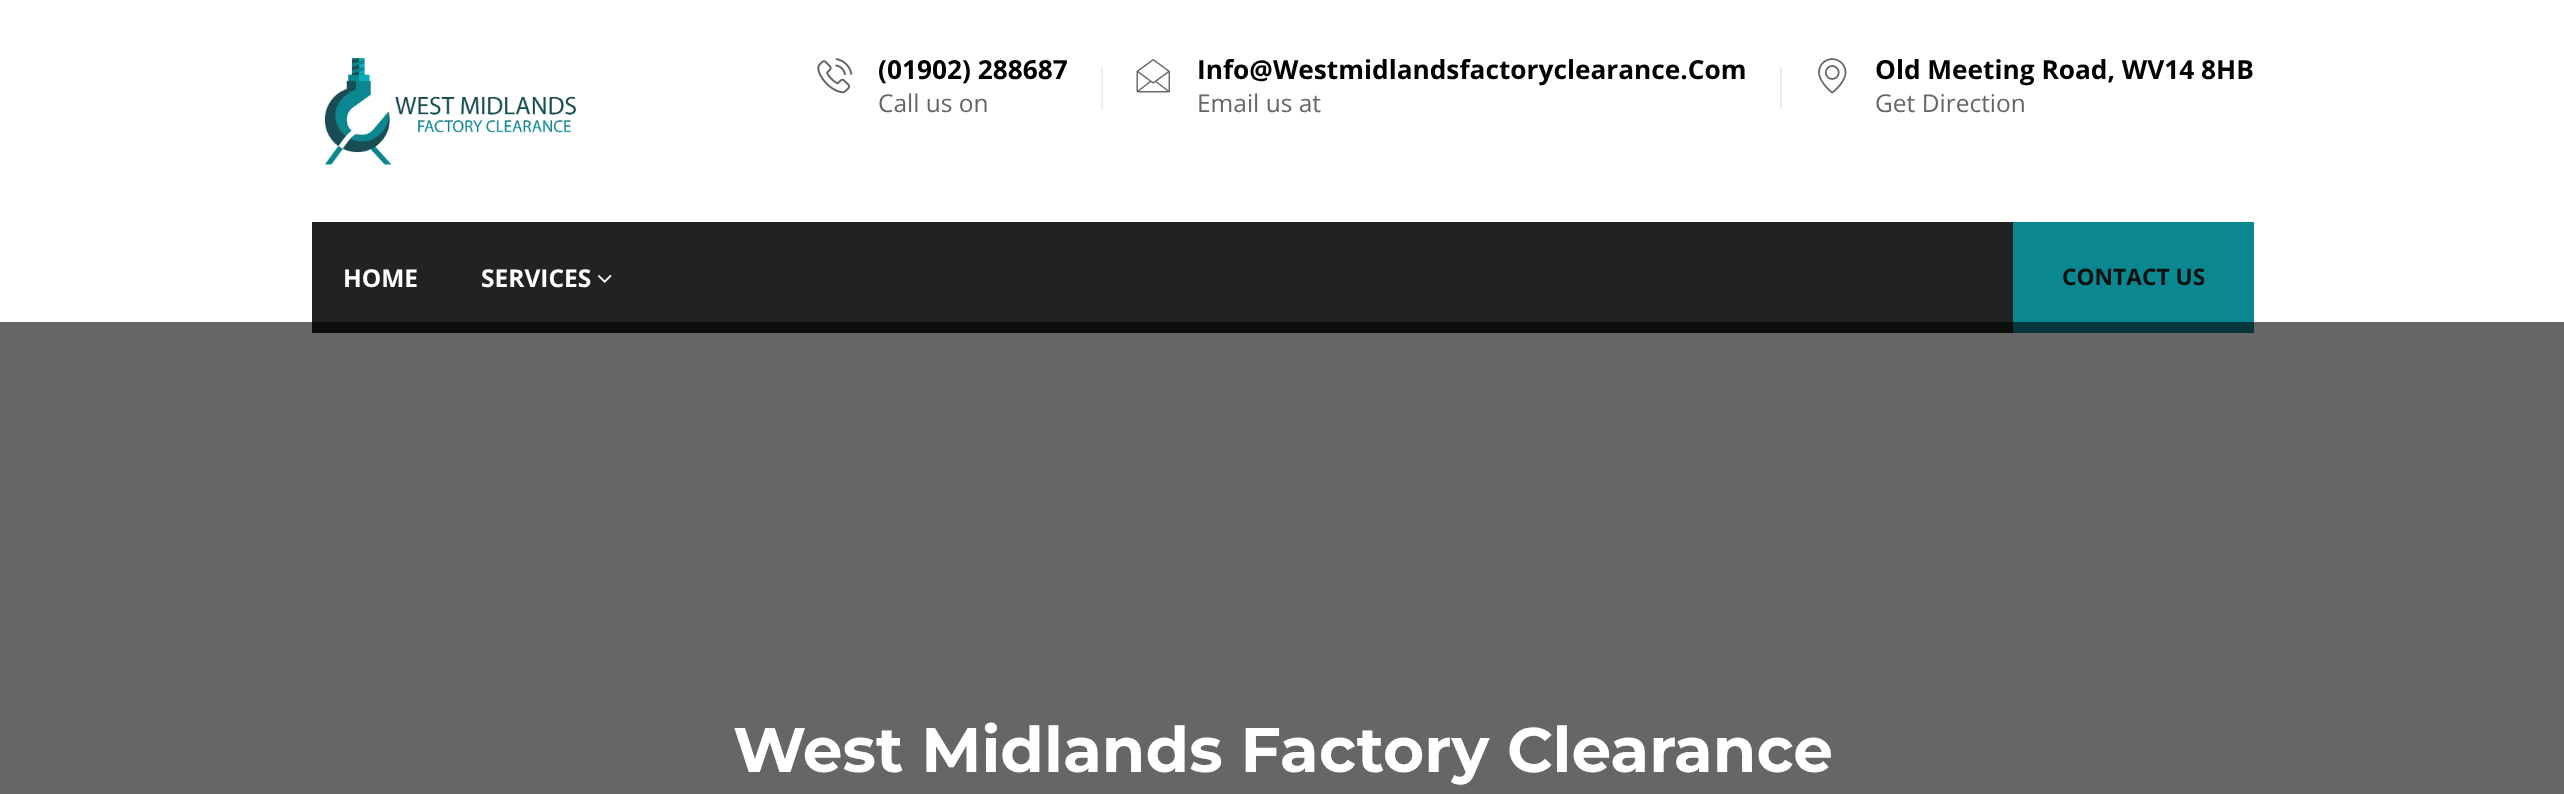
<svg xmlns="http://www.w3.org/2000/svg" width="2564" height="794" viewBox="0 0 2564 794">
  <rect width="100%" height="100%" fill="#fff"/>
  <path d="M0 322h2564v472H0z" fill="#666"/>
  <image x="323" y="57" width="253" height="109" href="img/1.png"/>
  <image x="817" y="58" width="36" height="36" href="img/2.png"/>
  <path d="M1101 67h2v43H1101z" fill="#eee"/>
  <image x="1136" y="59" width="34" height="34" href="img/3.png"/>
  <path d="M1780 67h2v43H1780z" fill="#eee"/>
  <image x="1818" y="58" width="29" height="36" href="img/4.png"/>
  <path d="M312 222h1701v100H312z" fill="#222"/>
  <path d="M312 322h1701v11H312z" fill="#0e0e0e"/>
  <image x="597" y="275" width="15" height="8" href="img/5.png"/>
  <path d="M2013 222h241v100H2013z" fill="#0b8791"/>
  <path d="M2013 322h241v11H2013z" fill="#04363a"/>
  <text x="878" y="79" font-family="Open Sans" font-size="26.25" font-weight="bold" fill="#000">(01902) 288687</text>
  <text x="878" y="112" font-family="Open Sans" font-size="24.5" fill="#666">Call us on</text>
  <text x="1197" y="79" font-family="Open Sans" font-size="26.25" font-weight="bold" fill="#000">Info@Westmidlandsfactoryclearance.Com</text>
  <text x="1197" y="112" font-family="Open Sans" font-size="24.5" fill="#666">Email us at</text>
  <text x="1875" y="79" font-family="Open Sans" font-size="26.25" font-weight="bold" fill="#000">Old Meeting Road, WV14 8HB</text>
  <text x="1875" y="112" font-family="Open Sans" font-size="24.5" fill="#666">Get Direction</text>
  <g font-family="Open Sans" font-size="24.5" font-weight="bold" fill="#fff">
    <text x="343" y="287">HOME</text>
    <text x="481" y="287">SERVICES</text>
  </g>
  <text x="2062" y="285" font-family="Open Sans" font-size="22.75" font-weight="bold" fill="#101010">CONTACT US</text>
  <text x="733" y="772" font-family="Montserrat" font-size="63" font-weight="100" fill="#fff">West Midlands Factory Clearance</text>
</svg>
